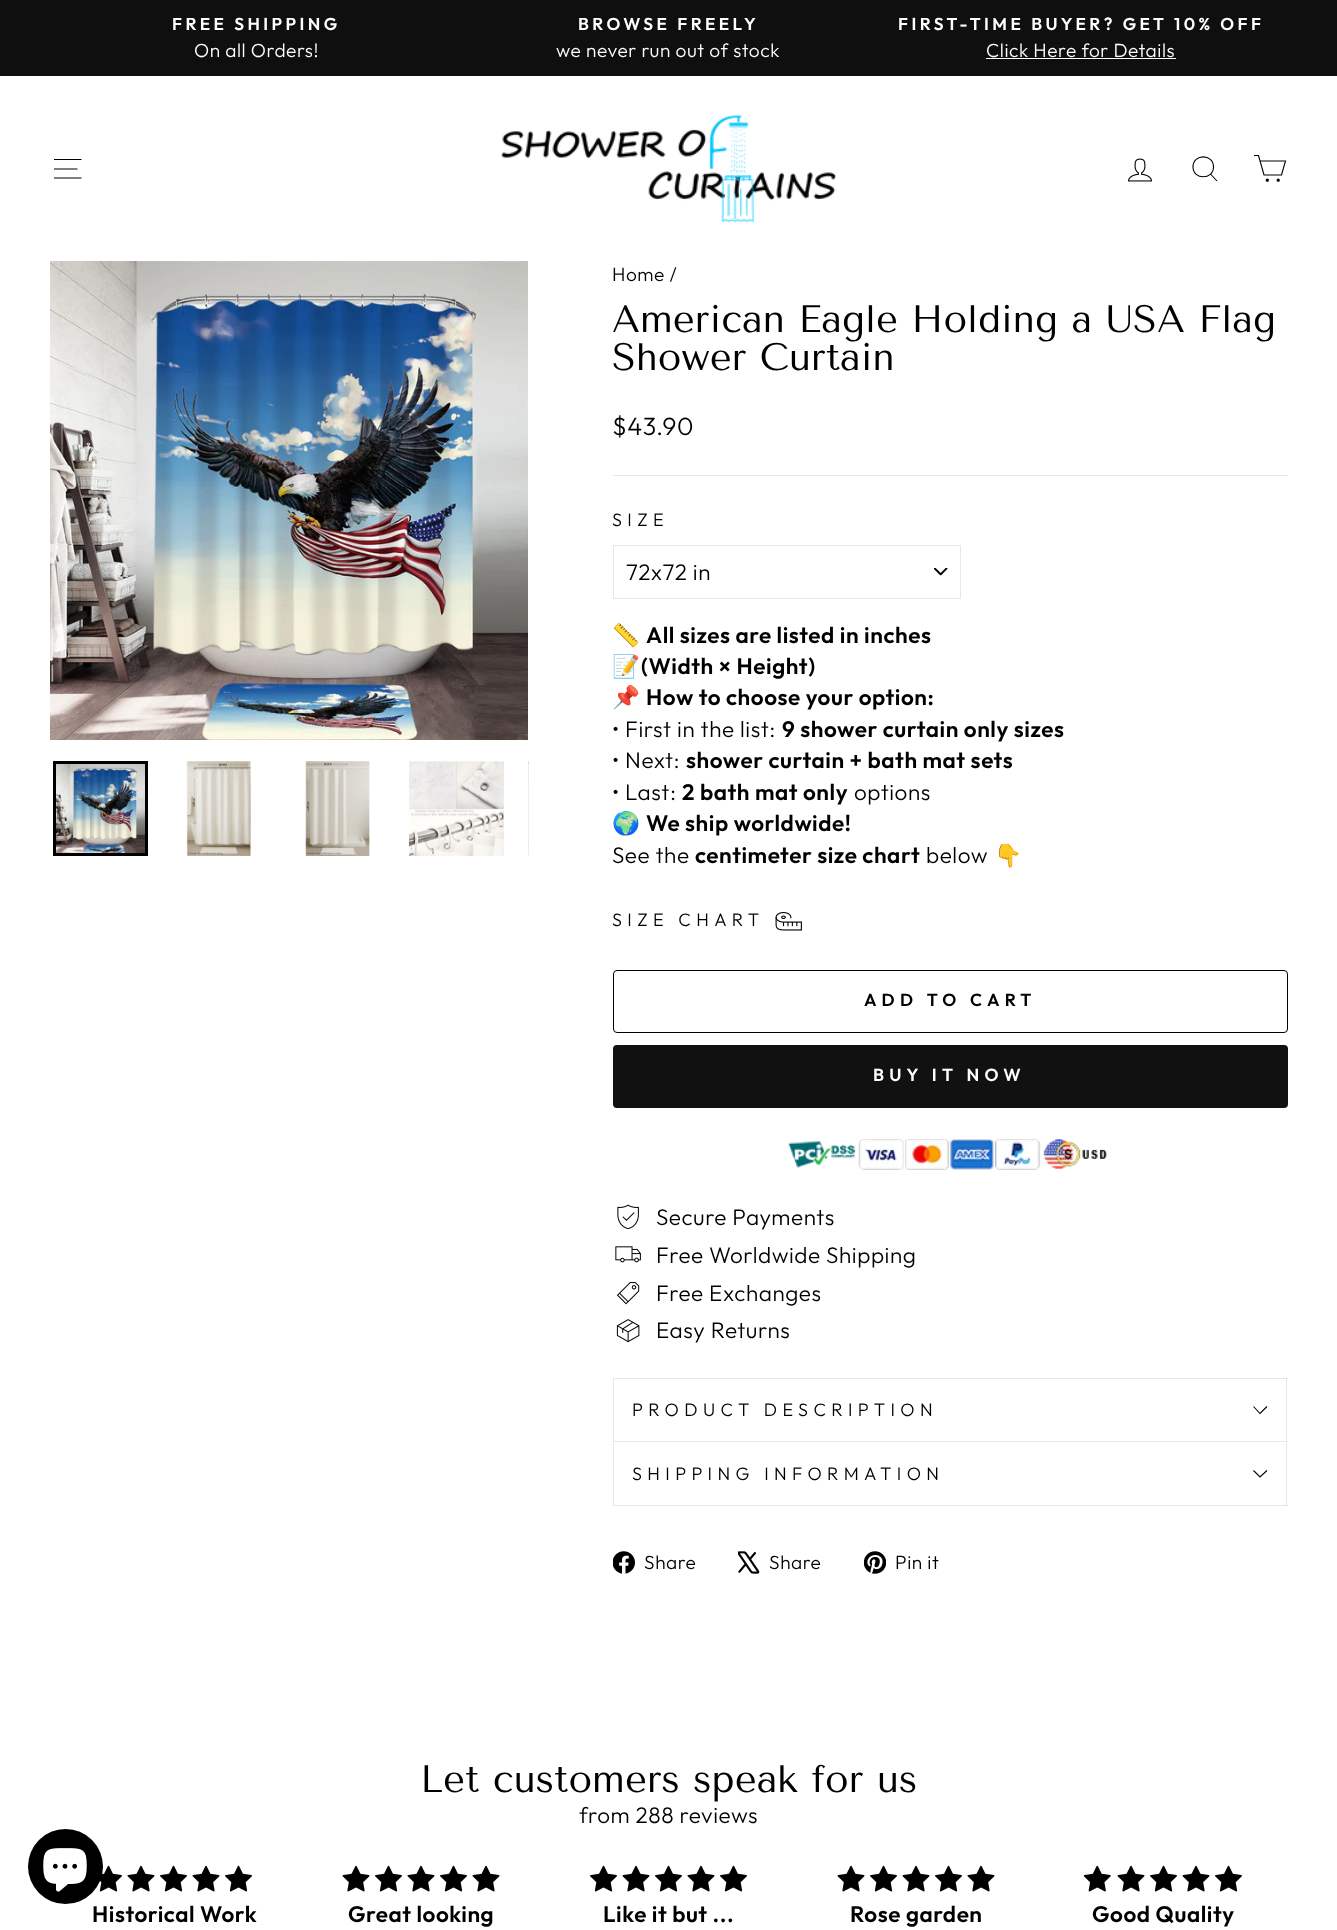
<svg xmlns="http://www.w3.org/2000/svg" width="1337" height="1930" viewBox="0 0 1337 1930">
  <rect width="100%" height="100%" fill="#fff"/>
  <image x="99" y="1865" width="23" height="27" href="img/20.png"/>
  <circle cx="65.5" cy="1866.5" r="37.5" fill="#000"/>
  <image x="43" y="1848" width="44" height="44" href="img/1.png"/>
  <path d="M0 0h1337v76H0z" fill="#0f0f0f"/>
  <path d="M986 58h190v1H986z" fill="#fff"/>
  <image x="50" y="261" width="478" height="479" href="img/4.png"/>
  <path d="M0 76h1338v185H0z" fill="#00000033" filter="blur(0.5px)"/>
  <path d="M0 76h1337v185H0z" fill="#fff"/>
  <path d="M54 159.5H81.5M54 169H77.5M54 178H81.5" fill="none" stroke="#000" stroke-width="1.1"/>
  <image x="501" y="114" width="336" height="109" href="img/2.png"/>
  <image x="1128" y="158" width="24" height="24" href="img/3.png"/>
  <path d="M1213.5 167C1213.5 180 1193 180 1193 167C1193 153.5 1213.5 153.5 1213.5 167ZM1217 181L1210.5 174" fill="none" stroke="#000" stroke-width="1.1"/>
  <path d="M1260 161H1285.5L1281.5 175H1264L1258.5 155.5H1254" fill="none" stroke="#000" stroke-width="1.1"/>
  <circle cx="1267.3" cy="180.2" r="1.1" fill="#000" stroke="#000" stroke-width="1.1"/>
  <circle cx="1278.2" cy="180.2" r="1.1" fill="#000" stroke="#000" stroke-width="1.1"/>
  <image x="56" y="764" width="89" height="89" href="img/5.png"/>
  <path d="M54.5 762.5h92v92H54.5z" fill="none" stroke="#000" stroke-width="3"/>
  <image x="186" y="761" width="65" height="95" href="img/6.png"/>
  <image x="305" y="761" width="65" height="95" href="img/7.png"/>
  <image x="409" y="761" width="95" height="95" href="img/8.png"/>
  <image x="528" y="761" width="1" height="95" href="img/9.png"/>
  <path d="M613 475h675v1H613z" fill="#e8e8e1"/>
  <image x="934" y="568" width="14" height="8" href="img/10.png"/>
  <path d="M613.5 545.5h347v53H613.5z" fill="none" stroke="#e8e8e1"/>
  <image x="775" y="912" width="27" height="19" href="img/11.png"/>
  <rect x="613.5" y="970.5" width="674" height="62" rx="3.5" fill="none" stroke="#000"/>
  <rect x="613" y="1045" width="675" height="63" rx="4" fill="#111"/>
  <image x="788" y="1139" width="319" height="31" href="img/12.png"/>
  <image x="617" y="1204" width="22" height="26" href="img/13.png"/>
  <image x="615" y="1246" width="26" height="17" href="img/14.png"/>
  <image x="616" y="1282" width="24" height="23" href="img/15.png"/>
  <image x="616" y="1319" width="24" height="24" href="img/16.png"/>
  <path d="M613 1441h675v1H613z" fill="#e8e8e1"/>
  <path d="M613 1378h675v1H613z" fill="#e8e8e1"/>
  <path d="M1286 1378h1v63H1286z" fill="#e8e8e1"/>
  <path d="M613 1378h1v63H613z" fill="#e8e8e1"/>
  <path d="M1253.5 1406.5L1260 1413.5L1267 1406.5" fill="none" stroke="#000" stroke-width="1.1"/>
  <path d="M613 1505h675v1H613z" fill="#e8e8e1"/>
  <path d="M1286 1443h1v62H1286z" fill="#e8e8e1"/>
  <path d="M613 1443h1v62H613z" fill="#e8e8e1"/>
  <path d="M1253.5 1470.5L1260 1477L1267 1470.5" fill="none" stroke="#000" stroke-width="1.1"/>
  <image x="613" y="1551" width="22" height="23" href="img/17.png"/>
  <image x="738" y="1551" width="22" height="23" href="img/18.png"/>
  <image x="864" y="1551" width="22" height="23" href="img/19.png"/>
  <image x="127" y="1865" width="28" height="27" href="img/21.png"/>
  <image x="160" y="1865" width="27" height="27" href="img/22.png"/>
  <image x="192" y="1865" width="28" height="27" href="img/21.png"/>
  <image x="225" y="1865" width="27" height="27" href="img/22.png"/>
  <image x="342" y="1865" width="28" height="27" href="img/21.png"/>
  <image x="375" y="1865" width="27" height="27" href="img/22.png"/>
  <image x="407" y="1865" width="28" height="27" href="img/21.png"/>
  <image x="440" y="1865" width="27" height="27" href="img/22.png"/>
  <image x="472" y="1865" width="28" height="27" href="img/21.png"/>
  <image x="590" y="1865" width="27" height="27" href="img/22.png"/>
  <image x="622" y="1865" width="28" height="27" href="img/21.png"/>
  <image x="655" y="1865" width="27" height="27" href="img/22.png"/>
  <image x="687" y="1865" width="28" height="27" href="img/21.png"/>
  <image x="720" y="1865" width="27" height="27" href="img/22.png"/>
  <image x="837" y="1865" width="28" height="27" href="img/21.png"/>
  <image x="870" y="1865" width="27" height="27" href="img/22.png"/>
  <image x="902" y="1865" width="28" height="27" href="img/21.png"/>
  <image x="935" y="1865" width="27" height="27" href="img/22.png"/>
  <image x="967" y="1865" width="28" height="27" href="img/21.png"/>
  <image x="1083" y="1865" width="28" height="27" href="img/23.png"/>
  <image x="1117" y="1865" width="28" height="27" href="img/21.png"/>
  <image x="1150" y="1865" width="27" height="27" href="img/22.png"/>
  <image x="1182" y="1865" width="28" height="27" href="img/21.png"/>
  <image x="1215" y="1865" width="27" height="27" href="img/22.png"/>
  <text x="172" y="30" font-family="Outfit" font-size="17.25" font-weight="600" letter-spacing="3.45" fill="#fff">FREE SHIPPING</text>
  <text x="194" y="57" font-family="Outfit" font-size="19.1" font-weight="300" letter-spacing="0.55" fill="#fff">On all Orders!</text>
  <text x="578" y="30" font-family="Outfit" font-size="17.25" font-weight="600" letter-spacing="3.45" fill="#fff">BROWSE FREELY</text>
  <text x="556" y="57" font-family="Outfit" font-size="19.1" font-weight="300" letter-spacing="0.55" fill="#fff">we never run out of stock</text>
  <text x="898" y="30" font-family="Outfit" font-size="17.25" font-weight="600" letter-spacing="3.45" fill="#fff">FIRST-TIME BUYER? GET 10% OFF</text>
  <text x="986" y="57" font-family="Outfit" font-size="19.1" font-weight="300" letter-spacing="0.55" fill="#fff">Click Here for Details</text>
  <text x="612" y="281" font-family="Outfit" font-size="19.1" font-weight="300" letter-spacing="0.55" fill="#000">Home /</text>
  <g font-family="Tenor Sans" font-size="38.25" fill="#000">
    <text x="612" y="332">American Eagle Holding a USA Flag</text>
    <text x="612" y="370">Shower Curtain</text>
  </g>
  <text x="612" y="435" font-family="Outfit" font-size="25" font-weight="300" letter-spacing="0.55" fill="#000">$43.90</text>
  <text x="612" y="526" font-family="Outfit" font-size="18" font-weight="300" letter-spacing="5.4" fill="#000">SIZE</text>
  <text x="626" y="580" font-family="Outfit" font-size="22.5" font-weight="300" letter-spacing="0.55" fill="#000">72x72 in</text>
  <text x="612" y="643" font-family="Noto Color Emoji" font-size="22.5" letter-spacing="0.55" fill="#000">📏</text>
  <text x="646" y="643" font-family="Outfit" font-size="22.5" font-weight="600" letter-spacing="0.55" fill="#000">All sizes are listed in inches</text>
  <text x="612" y="674" font-family="Noto Color Emoji" font-size="22.5" font-weight="bold" letter-spacing="0.55" fill="#000">📝</text>
  <text x="641" y="674" font-family="Outfit" font-size="22.5" font-weight="600" letter-spacing="0.55" fill="#000">(Width × Height)</text>
  <text x="612" y="705" font-family="Noto Color Emoji" font-size="22.5" font-weight="bold" letter-spacing="0.55" fill="#000">📌</text>
  <text x="646" y="705" font-family="Outfit" font-size="22.5" font-weight="600" letter-spacing="0.55" fill="#000">How to choose your option:</text>
  <text x="612" y="737" font-family="Outfit" font-size="22.5" font-weight="300" letter-spacing="0.55" fill="#000">• First in the list:</text>
  <text x="782" y="737" font-family="Outfit" font-size="22.5" font-weight="600" letter-spacing="0.55" fill="#000">9 shower curtain only sizes</text>
  <text x="612" y="768" font-family="Outfit" font-size="22.5" font-weight="300" letter-spacing="0.55" fill="#000">• Next:</text>
  <text x="686" y="768" font-family="Outfit" font-size="22.5" font-weight="600" letter-spacing="0.55" fill="#000">shower curtain + bath mat sets</text>
  <text x="612" y="800" font-family="Outfit" font-size="22.5" font-weight="300" letter-spacing="0.55" fill="#000">• Last:</text>
  <text x="682" y="800" font-family="Outfit" font-size="22.5" font-weight="600" letter-spacing="0.55" fill="#000">2 bath mat only</text>
  <text x="854" y="800" font-family="Outfit" font-size="22.5" font-weight="300" letter-spacing="0.55" fill="#000">options</text>
  <text x="612" y="831" font-family="Noto Color Emoji" font-size="22.5" font-weight="bold" letter-spacing="0.55" fill="#000">🌍</text>
  <text x="646" y="831" font-family="Outfit" font-size="22.5" font-weight="600" letter-spacing="0.55" fill="#000">We ship worldwide!</text>
  <text x="612" y="863" font-family="Outfit" font-size="22.5" font-weight="300" letter-spacing="0.55" fill="#000">See the</text>
  <text x="695" y="863" font-family="Outfit" font-size="22.5" font-weight="600" letter-spacing="0.55" fill="#000">centimeter size chart</text>
  <text x="926" y="863" font-family="Outfit" font-size="22.5" font-weight="300" letter-spacing="0.55" fill="#000">below</text>
  <text x="994" y="863" font-family="Noto Color Emoji" font-size="22.5" letter-spacing="0.55" fill="#000">👇</text>
  <text x="612" y="926" font-family="Outfit" font-size="18" font-weight="300" letter-spacing="5.4" fill="#000">SIZE CHART</text>
  <text x="864" y="1006" font-family="Outfit" font-size="17.5" font-weight="600" letter-spacing="5.25" fill="#000">ADD TO CART</text>
  <text x="873" y="1081" font-family="Outfit" font-size="17.5" font-weight="600" letter-spacing="5.25" fill="#fff">BUY IT NOW</text>
  <g font-family="Outfit" font-size="22.5" font-weight="300" letter-spacing="0.55" fill="#000">
    <text x="656" y="1225">Secure Payments</text>
    <text x="656" y="1263">Free Worldwide Shipping</text>
    <text x="656" y="1301">Free Exchanges</text>
    <text x="656" y="1338">Easy Returns</text>
  </g>
  <g font-family="Outfit" font-size="18" font-weight="300" letter-spacing="5.4" fill="#000">
    <text x="632" y="1416">PRODUCT DESCRIPTION</text>
    <text x="632" y="1480">SHIPPING INFORMATION</text>
  </g>
  <g font-family="Outfit" font-size="19.1" font-weight="300" letter-spacing="0.55" fill="#000">
    <text x="644" y="1569">Share</text>
    <text x="769" y="1569">Share</text>
    <text x="895" y="1569">Pin it</text>
  </g>
  <text x="420" y="1792" font-family="Tenor Sans" font-size="38.25" fill="#000">Let customers speak for us</text>
  <text x="579" y="1823" font-family="Outfit" font-size="22.5" font-weight="300" letter-spacing="0.55" fill="#000">from 288 reviews</text>
  <g font-family="Outfit" font-size="22.5" font-weight="600" letter-spacing="0.55" fill="#000">
    <text x="92" y="1922">Historical Work</text>
    <text x="348" y="1922">Great looking</text>
    <text x="603" y="1922">Like it but ...</text>
    <text x="850" y="1922">Rose garden</text>
    <text x="1092" y="1922">Good Quality</text>
  </g>
</svg>
